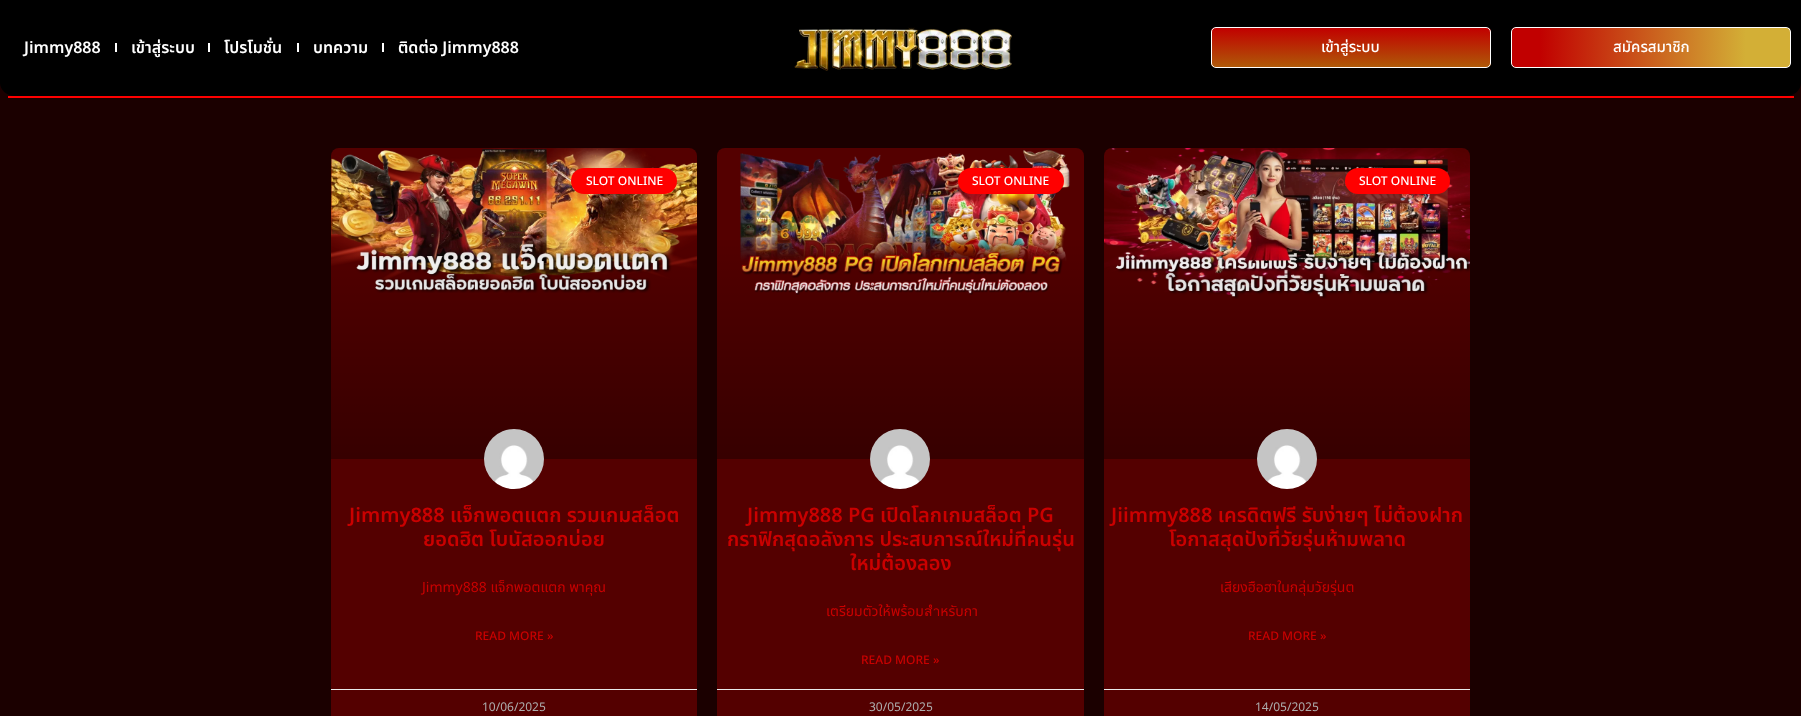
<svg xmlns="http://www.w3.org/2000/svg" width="1801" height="716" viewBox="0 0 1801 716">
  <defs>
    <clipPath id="clip1"><rect x="1211" y="27" width="280" height="41" rx="5"/></clipPath>
    <linearGradient id="g1" gradientUnits="userSpaceOnUse" x1="1351" y1="28" x2="1351" y2="67"><stop offset="0" stop-color="#c10000"/><stop offset="1" stop-color="#af5908"/></linearGradient>
    <clipPath id="clip2"><rect x="1511" y="27" width="280" height="41" rx="5"/></clipPath>
    <linearGradient id="g2" gradientUnits="userSpaceOnUse" x1="1512" y1="45" x2="1790" y2="50"><stop offset="0.1" stop-color="#c10000"/><stop offset="0.84" stop-color="#d3af36"/></linearGradient>
    <linearGradient id="g3" gradientUnits="userSpaceOnUse" x1="514" y1="459" x2="514" y2="148"><stop offset="0" stop-color="#000" stop-opacity="0.35"/><stop offset="0.75" stop-color="#000" stop-opacity="0"/></linearGradient>
    <linearGradient id="g4" gradientUnits="userSpaceOnUse" x1="901" y1="459" x2="901" y2="148"><stop offset="0" stop-color="#000" stop-opacity="0.35"/><stop offset="0.75" stop-color="#000" stop-opacity="0"/></linearGradient>
    <linearGradient id="g5" gradientUnits="userSpaceOnUse" x1="1287" y1="459" x2="1287" y2="148"><stop offset="0" stop-color="#000" stop-opacity="0.35"/><stop offset="0.75" stop-color="#000" stop-opacity="0"/></linearGradient>
  </defs>
  <rect width="100%" height="100%" fill="#1b0000"/>
  <path d="M0 0H1801V83C1801 90 1794 96 1786 96H15C7 96 0 90 0 83Z" fill="#000"/>
  <path d="M8 96h1786v2H8z" fill="#f00"/>
  <path d="M115 43h2v9H115z" fill="#fff"/>
  <path d="M208 43h2v9H208z" fill="#fff"/>
  <path d="M297 43h2v9H297z" fill="#fff"/>
  <path d="M382 43h2v9H382z" fill="#fff"/>
  <image x="794" y="27" width="218" height="44" href="img/1.png"/>
  <g clip-path="url(#clip1)">
    <path d="M1211 28h280v39H1211z" fill="url(#g1)"/>
  </g>
  <rect x="1211.5" y="27.5" width="279" height="40" rx="4.5" fill="none" stroke="#fff"/>
  <g clip-path="url(#clip2)">
    <path d="M1512 28h278v39H1512z" fill="url(#g2)"/>
  </g>
  <rect x="1511.5" y="27.5" width="279" height="40" rx="4.5" fill="none" stroke="#fff"/>
  <rect x="331" y="148" width="366" height="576" rx="8" fill="#540000"/>
  <image x="331" y="148" width="366" height="145" href="img/2.png"/>
  <path d="M331 240h366v219H331z" fill="url(#g3)"/>
  <rect x="571" y="168" width="106" height="26" rx="13" fill="#f00"/>
  <image x="484" y="429" width="60" height="60" href="img/3.png"/>
  <path d="M331 689h366v1H331z" fill="#eaeaea"/>
  <rect x="717" y="148" width="367" height="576" rx="8" fill="#540000"/>
  <image x="740" y="149" width="330" height="146" href="img/4.png"/>
  <path d="M717 240h367v219H717z" fill="url(#g4)"/>
  <rect x="958" y="168" width="106" height="26" rx="13" fill="#f00"/>
  <image x="870" y="429" width="60" height="60" href="img/5.png"/>
  <path d="M717 689h367v1H717z" fill="#eaeaea"/>
  <rect x="1104" y="148" width="366" height="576" rx="8" fill="#540000"/>
  <image x="1104" y="148" width="366" height="151" href="img/6.png"/>
  <path d="M1104 240h366v219H1104z" fill="url(#g5)"/>
  <rect x="1345" y="168" width="105" height="26" rx="13" fill="#f00"/>
  <image x="1257" y="429" width="60" height="60" href="img/7.png"/>
  <path d="M1104 689h366v1H1104z" fill="#eaeaea"/>
  <g font-family="Noto Sans Thai" font-size="16" font-weight="600" fill="#fff">
    <text x="24" y="53">Jimmy888</text>
    <text x="131" y="53">เข้าสู่ระบบ</text>
    <text x="224" y="53">โปรโมชั่น</text>
    <text x="313" y="53">บทความ</text>
    <text x="398" y="53">ติดต่อ Jimmy888</text>
  </g>
  <g font-family="Noto Sans Thai" font-size="15" font-weight="500" fill="#fff">
    <text x="1321" y="52">เข้าสู่ระบบ</text>
    <text x="1613" y="52">สมัครสมาชิก</text>
  </g>
  <text x="586" y="185" font-family="Noto Sans Thai" font-size="12" font-weight="500" fill="#fff">SLOT ONLINE</text>
  <g font-family="Noto Sans Thai" font-size="20" font-weight="600" fill="#ca0000">
    <text x="349" y="522">Jimmy888 แจ็กพอตแตก รวมเกมสล็อต</text>
    <text x="423" y="546">ยอดฮิต โบนัสออกบ่อย</text>
  </g>
  <text x="422" y="592" font-family="Noto Sans Thai" font-size="14" fill="#ca0000">Jimmy888 แจ็กพอตแตก พาคุณ</text>
  <text x="475" y="640" font-family="Noto Sans Thai" font-size="12" font-weight="500" fill="#ca0000">READ MORE »</text>
  <text x="482" y="711" font-family="Noto Sans Thai" font-size="12" fill="#adadad">10/06/2025</text>
  <text x="972" y="185" font-family="Noto Sans Thai" font-size="12" font-weight="500" fill="#fff">SLOT ONLINE</text>
  <g font-family="Noto Sans Thai" font-size="20" font-weight="600" fill="#ca0000">
    <text x="747" y="522">Jimmy888 PG เปิดโลกเกมสล็อต PG</text>
    <text x="727" y="546">กราฟิกสุดอลังการ ประสบการณ์ใหม่ที่คนรุ่น</text>
    <text x="850" y="570">ใหม่ต้องลอง</text>
  </g>
  <text x="826" y="616" font-family="Noto Sans Thai" font-size="14" fill="#ca0000">เตรียมตัวให้พร้อมสำหรับกา</text>
  <text x="861" y="664" font-family="Noto Sans Thai" font-size="12" font-weight="500" fill="#ca0000">READ MORE »</text>
  <text x="869" y="711" font-family="Noto Sans Thai" font-size="12" fill="#adadad">30/05/2025</text>
  <text x="1359" y="185" font-family="Noto Sans Thai" font-size="12" font-weight="500" fill="#fff">SLOT ONLINE</text>
  <g font-family="Noto Sans Thai" font-size="20" font-weight="600" fill="#ca0000">
    <text x="1111" y="522">Jiimmy888 เครดิตฟรี รับง่ายๆ ไม่ต้องฝาก</text>
    <text x="1169" y="546">โอกาสสุดปังที่วัยรุ่นห้ามพลาด</text>
  </g>
  <text x="1220" y="592" font-family="Noto Sans Thai" font-size="14" fill="#ca0000">เสียงฮือฮาในกลุ่มวัยรุ่นต</text>
  <text x="1248" y="640" font-family="Noto Sans Thai" font-size="12" font-weight="500" fill="#ca0000">READ MORE »</text>
  <text x="1255" y="711" font-family="Noto Sans Thai" font-size="12" fill="#adadad">14/05/2025</text>
</svg>
